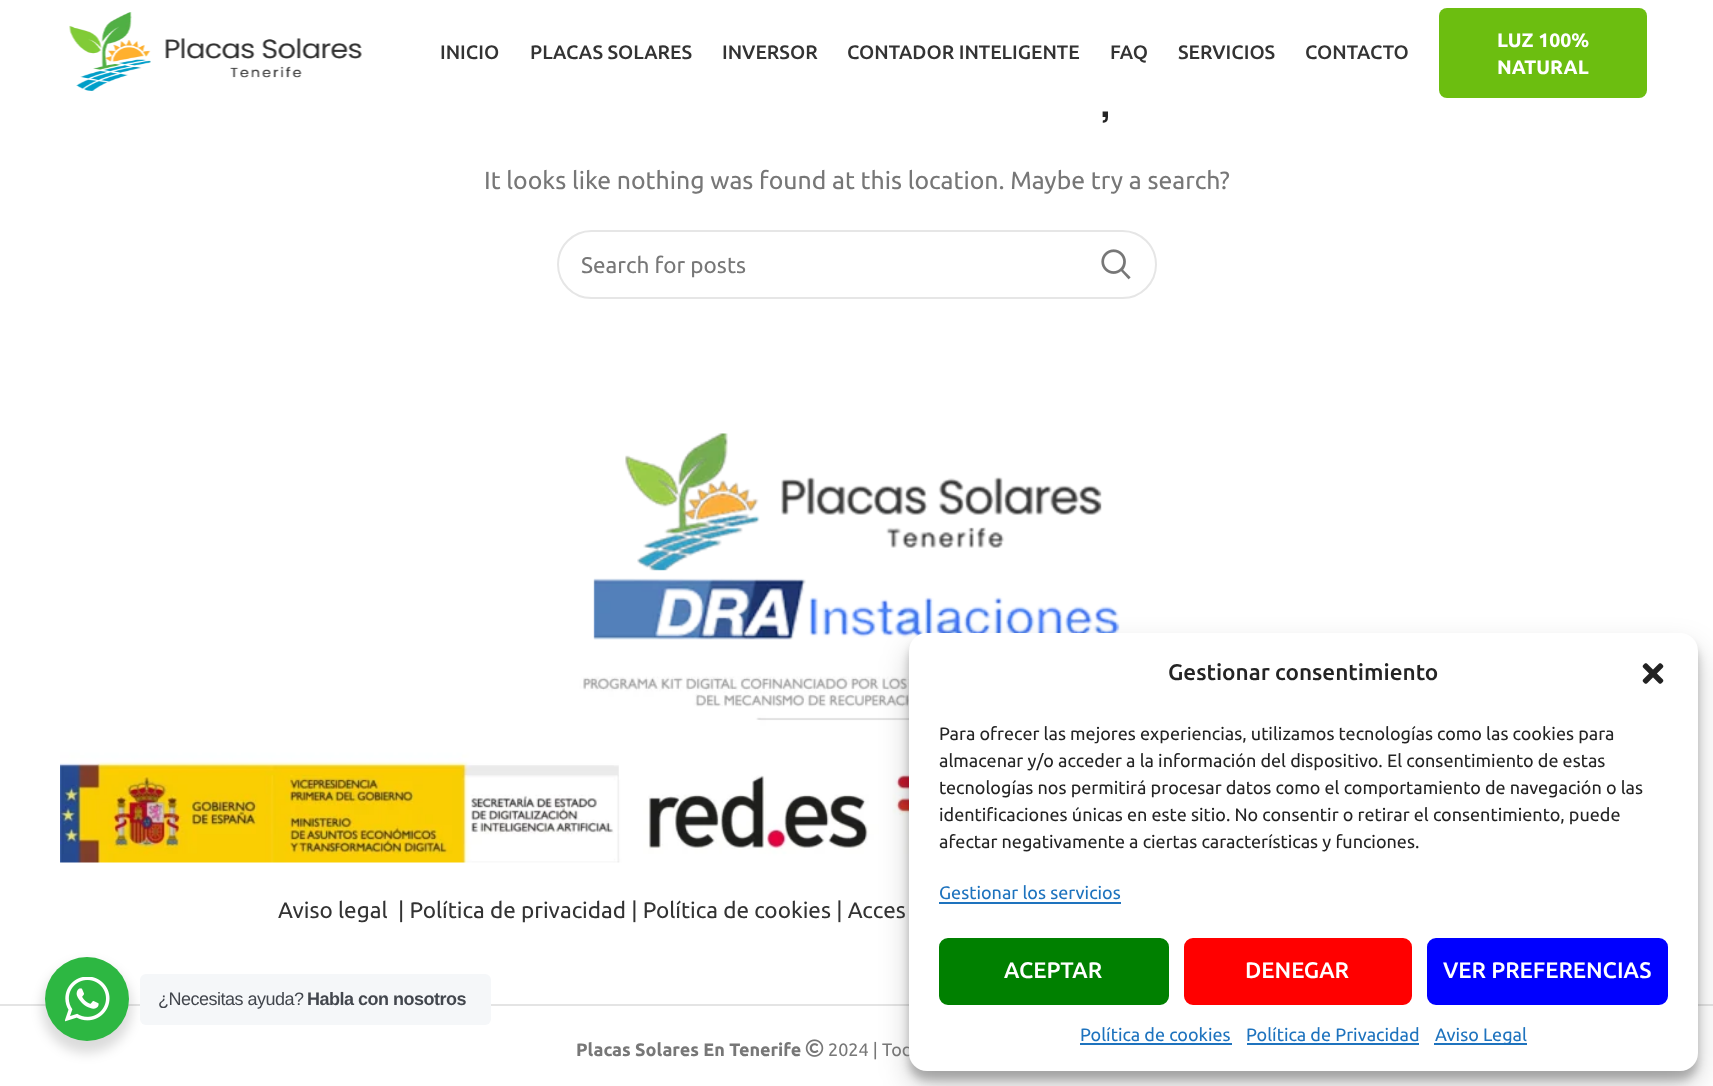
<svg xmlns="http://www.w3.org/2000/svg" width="1713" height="1086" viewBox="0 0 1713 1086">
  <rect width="100%" height="100%" fill="#fff"/>
  <image x="69" y="12" width="293" height="79" href="img/1.png"/>
  <rect x="1439" y="8" width="208" height="90" rx="8" fill="#6cbe10"/>
  <rect x="558" y="231" width="598" height="67" rx="33.5" fill="none" stroke="#e6e6e6" stroke-width="2"/>
  <image x="1101" y="249" width="30" height="31" href="img/2.png"/>
  <image x="593" y="433" width="527" height="207" href="img/3.png"/>
  <image x="60" y="676" width="849" height="187" href="img/4.png"/>
  <path d="M0 1004h1713v2H0z" fill="#e4e4e4"/>
  <image x="805" y="1039" width="19" height="18" href="img/5.png"/>
  <rect x="42" y="963" width="90" height="90" rx="45" fill="#00000024" filter="blur(6px)"/>
  <circle cx="87" cy="999" r="42" fill="#2db742"/>
  <image x="65" y="977" width="45" height="45" href="img/6.png"/>
  <rect x="140" y="974" width="351" height="51" rx="6" fill="#f5f7f9"/>
  <rect x="909" y="642" width="789" height="438" rx="18" fill="#0000003b" filter="blur(4.5px)"/>
  <rect x="909" y="648" width="789" height="438" rx="18" fill="#00000030" filter="blur(15px)"/>
  <g font-family="Ubuntu" font-size="19.5" font-weight="500" fill="#333">
    <text x="440" y="59">INICIO</text>
    <text x="530" y="59">PLACAS SOLARES</text>
    <text x="722" y="59">INVERSOR</text>
    <text x="847" y="59">CONTADOR INTELIGENTE</text>
    <text x="1110" y="59">FAQ</text>
    <text x="1178" y="59">SERVICIOS</text>
    <text x="1305" y="59">CONTACTO</text>
  </g>
  <g font-family="Ubuntu" font-size="19.5" font-weight="bold" fill="#fff">
    <text x="1497" y="47">LUZ 100%</text>
    <text x="1497" y="74">NATURAL</text>
  </g>
  <text x="1100" y="117" font-family="'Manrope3'" font-size="42" font-weight="bold" fill="#242424">,</text>
  <text x="484" y="189" font-family="Ubuntu" font-size="24.75" fill="#777">It looks like nothing was found at this location. Maybe try a search?</text>
  <text x="581" y="273" font-family="Ubuntu" font-size="22.5" fill="#777">Search for posts</text>
  <g font-family="Ubuntu" font-size="22.5" fill="#333">
    <text x="278" y="918">Aviso legal</text>
    <text x="398" y="918">| Política de privacidad | Política de cookies | Acces</text>
  </g>
  <text x="576" y="1056" font-family="Ubuntu" font-size="18" font-weight="bold" fill="#777">Placas Solares En Tenerife</text>
  <text x="828" y="1056" font-family="Ubuntu" font-size="18" fill="#777">2024 | Tod</text>
  <text x="158" y="1005" font-family="Liberation Sans" font-size="18" letter-spacing="-0.5" fill="#43474e">¿Necesitas ayuda?</text>
  <text x="307" y="1005" font-family="Liberation Sans" font-size="18" font-weight="bold" letter-spacing="-0.5" fill="#43474e">Habla con nosotros</text>
  <rect x="909" y="633" width="789" height="438" rx="18" fill="#fff"/>
  <text x="1168" y="680" font-family="Ubuntu" font-size="22.5" font-weight="500" fill="#242424">Gestionar consentimiento</text>
  <image x="1642" y="663" width="22" height="21" href="img/7.png"/>
  <g font-family="Ubuntu" font-size="18" fill="#242424">
    <text x="939" y="740">Para ofrecer las mejores experiencias, utilizamos tecnologías como las cookies para</text>
    <text x="939" y="767">almacenar y/o acceder a la información del dispositivo. El consentimiento de estas</text>
    <text x="939" y="794">tecnologías nos permitirá procesar datos como el comportamiento de navegación o las</text>
    <text x="939" y="821">identificaciones únicas en este sitio. No consentir o retirar el consentimiento, puede</text>
    <text x="939" y="848">afectar negativamente a ciertas características y funciones.</text>
  </g>
  <text x="939" y="899" font-family="Ubuntu" font-size="18" fill="#1e73be">Gestionar los servicios</text>
  <path d="M939 902h182v2H939z" fill="#1e73be"/>
  <rect x="940" y="939" width="228" height="65" rx="8" fill="#008000" stroke="#008000" stroke-width="2"/>
  <text x="1004" y="978" font-family="Ubuntu" font-size="22.5" font-weight="500" fill="#fff">ACEPTAR</text>
  <rect x="1185" y="939" width="226" height="65" rx="8" fill="#f00" stroke="#f00" stroke-width="2"/>
  <text x="1245" y="978" font-family="Ubuntu" font-size="22.5" font-weight="500" fill="#fff">DENEGAR</text>
  <rect x="1428" y="939" width="239" height="65" rx="8" fill="#00f" stroke="#00f" stroke-width="2"/>
  <text x="1443" y="978" font-family="Ubuntu" font-size="22.5" font-weight="500" fill="#fff">VER PREFERENCIAS</text>
  <text x="1080" y="1041" font-family="Ubuntu" font-size="18" fill="#1e73be">Política de cookies</text>
  <path d="M1080 1043h152v2H1080z" fill="#1e73be"/>
  <text x="1246" y="1041" font-family="Ubuntu" font-size="18" fill="#1e73be">Política de Privacidad</text>
  <path d="M1247 1043h172v2H1247z" fill="#1e73be"/>
  <path d="M1434 1043h93v2H1434z" fill="#1e73be"/>
  <text x="1435" y="1041" font-family="Ubuntu" font-size="18" fill="#1e73be">Aviso Legal</text>
</svg>
